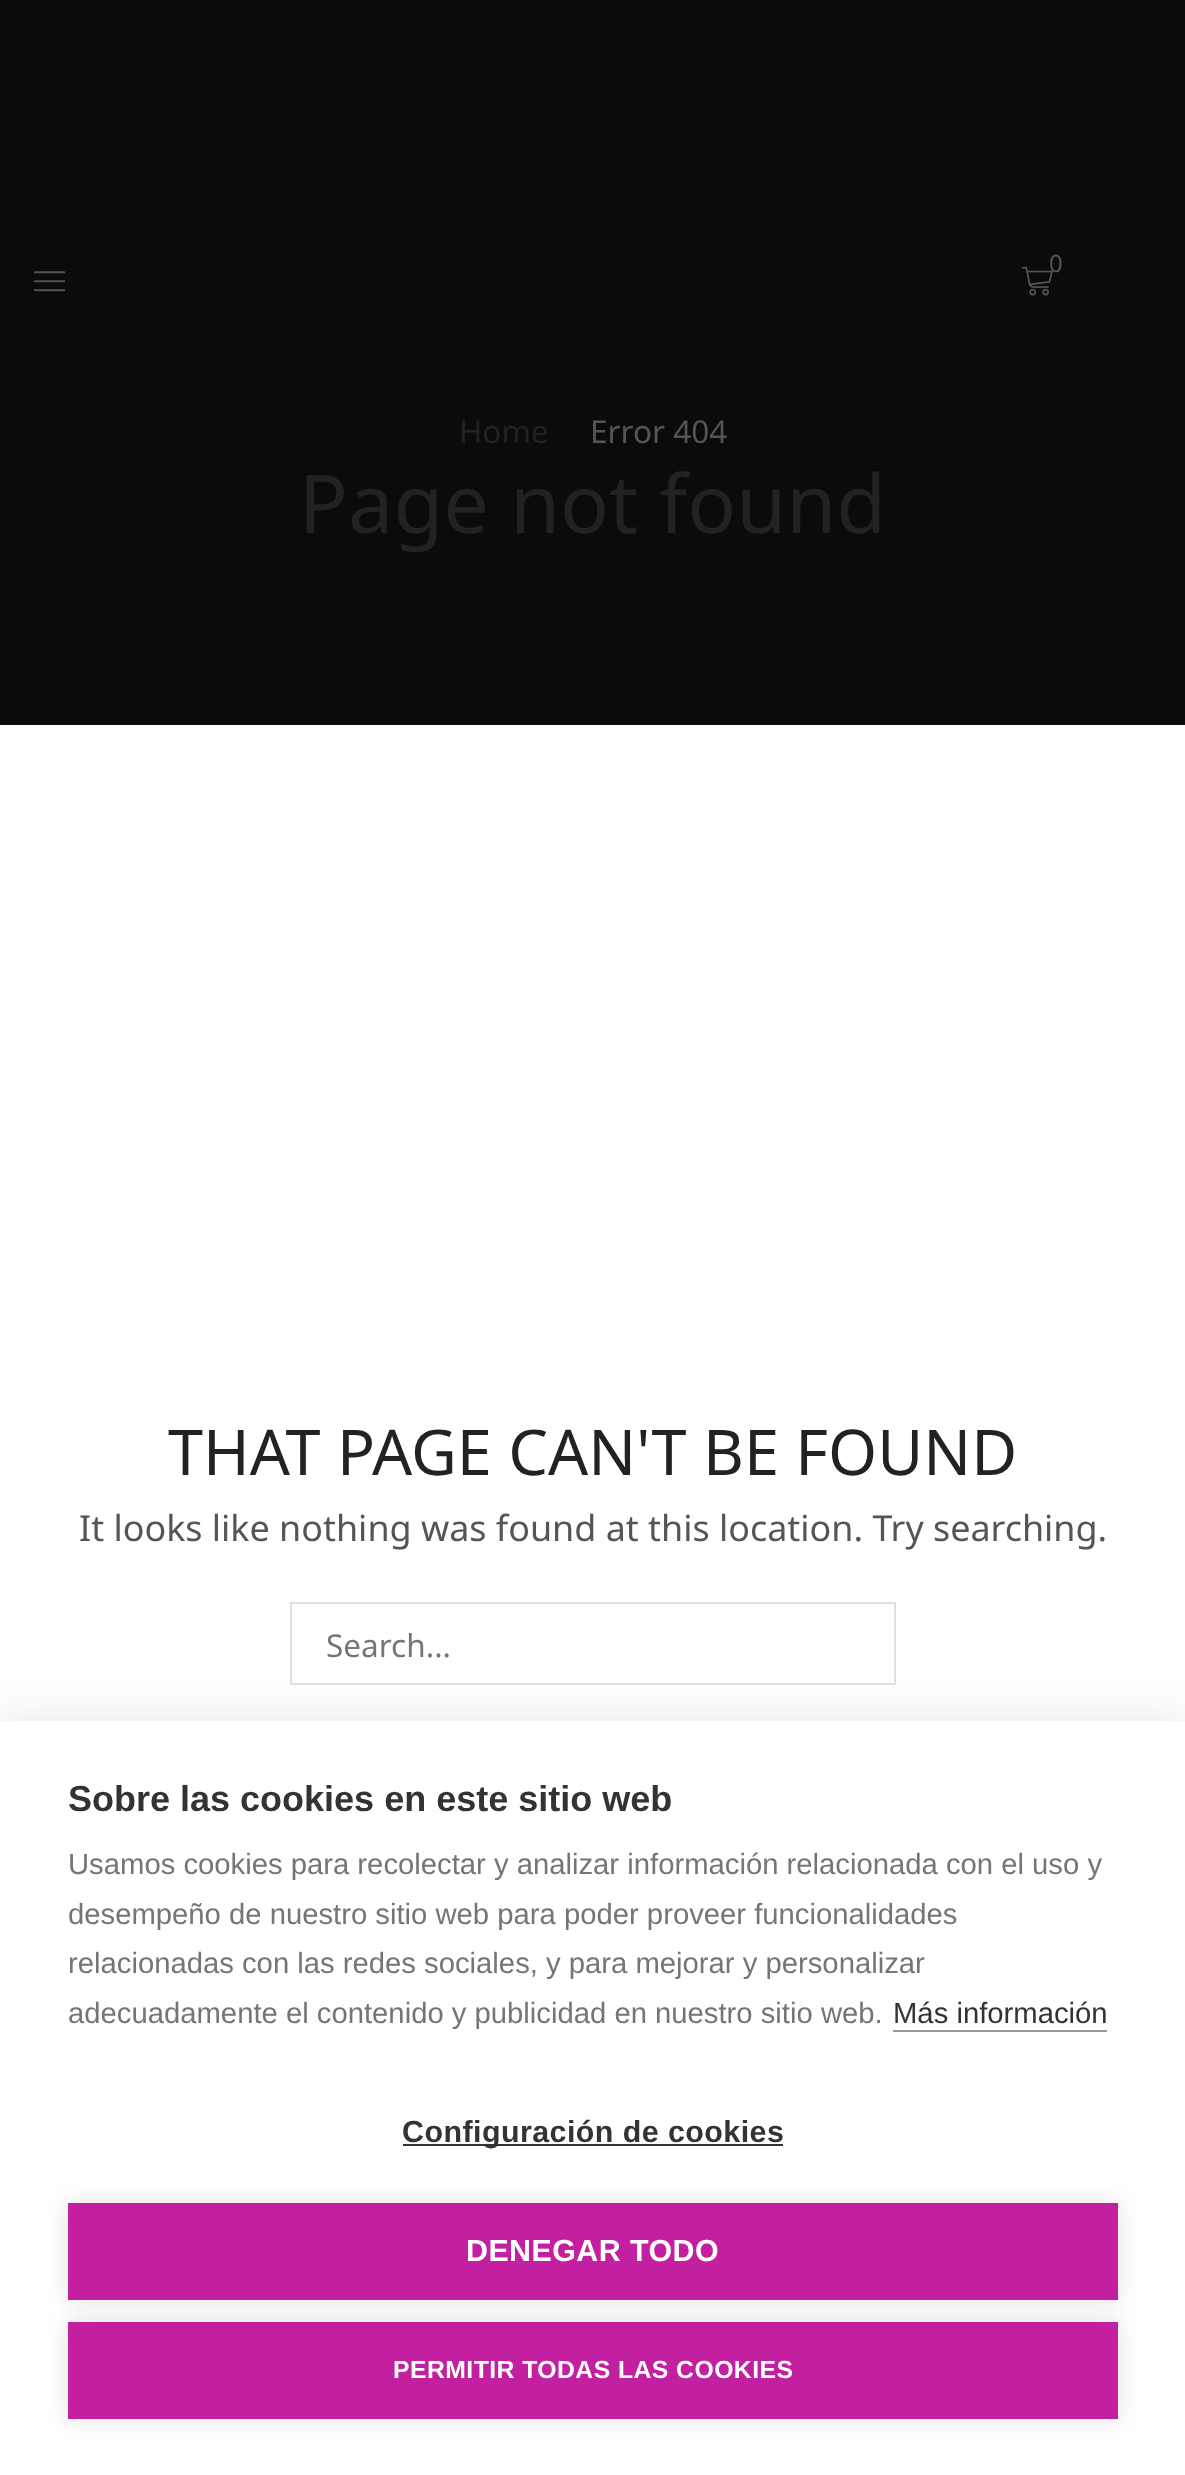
<svg xmlns="http://www.w3.org/2000/svg" width="1185" height="2475" viewBox="0 0 1185 2475">
  <rect width="100%" height="100%" fill="#fff"/>
  <path d="M0 0h1185v725H0z" fill="#0b0b0b"/>
  <image x="1021" y="266" width="32" height="30" href="img/1.png"/>
  <image x="33" y="271" width="33" height="21" href="img/2.png"/>
  <path d="M291 1603h604v81H291z" fill="none" stroke="#e1e1e1" stroke-width="2"/>
  <path d="M0 1721h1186v754H0z" fill="#0000001a" filter="blur(22.5px)"/>
  <path d="M0 1721h1185v754H0z" fill="#fff"/>
  <path d="M893 2030h214v2H893z" fill="#999"/>
  <path d="M403 2144h380v2H403z" fill="#333"/>
  <path d="M68 2203h1050v97H68z" fill="#0000001f" filter="blur(11px)"/>
  <path d="M68 2203h1050v97H68z" fill="#c220a0"/>
  <path d="M68 2322h1050v97H68z" fill="#0000001f" filter="blur(11px)"/>
  <path d="M68 2322h1050v97H68z" fill="#c220a0"/>
  <text x="1049" y="272" font-family="Noto Sans" font-size="24" fill="#555">0</text>
  <text x="459" y="443" font-family="Noto Sans" font-size="31.5" fill="#222">Home</text>
  <text x="590" y="443" font-family="Noto Sans" font-size="31.5" fill="#555">Error 404</text>
  <text x="299" y="533" font-family="Noto Sans" font-size="81" fill="#222">Page not found</text>
  <text x="168" y="1475" font-family="Noto Sans" font-size="63" fill="#222">THAT PAGE CAN'T BE FOUND</text>
  <text x="79" y="1541" font-family="Noto Sans" font-size="35.9" fill="#555">It looks like nothing was found at this location. Try searching.</text>
  <text x="326" y="1657" font-family="Noto Sans" font-size="31.5" fill="#757575">Search...</text>
  <text x="68" y="1811" font-family="Liberation Sans" font-size="36" font-weight="bold" fill="#333">Sobre las cookies en este sitio web</text>
  <g font-family="Liberation Sans" font-size="29.25" fill="#757575">
    <text x="68" y="1874">Usamos cookies para recolectar y analizar información relacionada con el uso y</text>
    <text x="68" y="1924">desempeño de nuestro sitio web para poder proveer funcionalidades</text>
    <text x="68" y="1973">relacionadas con las redes sociales, y para mejorar y personalizar</text>
    <text x="68" y="2023">adecuadamente el contenido y publicidad en nuestro sitio web.</text>
  </g>
  <text x="893" y="2023" font-family="Liberation Sans" font-size="29.25" fill="#333">Más información</text>
  <text x="402" y="2142" font-family="Liberation Sans" font-size="30.4" font-weight="bold" letter-spacing="0.45" fill="#333">Configuración de cookies</text>
  <text x="466" y="2261" font-family="Liberation Sans" font-size="30.4" font-weight="bold" letter-spacing="0.45" fill="#fff">DENEGAR TODO</text>
  <text x="393" y="2378" font-family="Liberation Sans" font-size="24.75" font-weight="bold" letter-spacing="0.45" fill="#fff">PERMITIR TODAS LAS COOKIES</text>
</svg>
